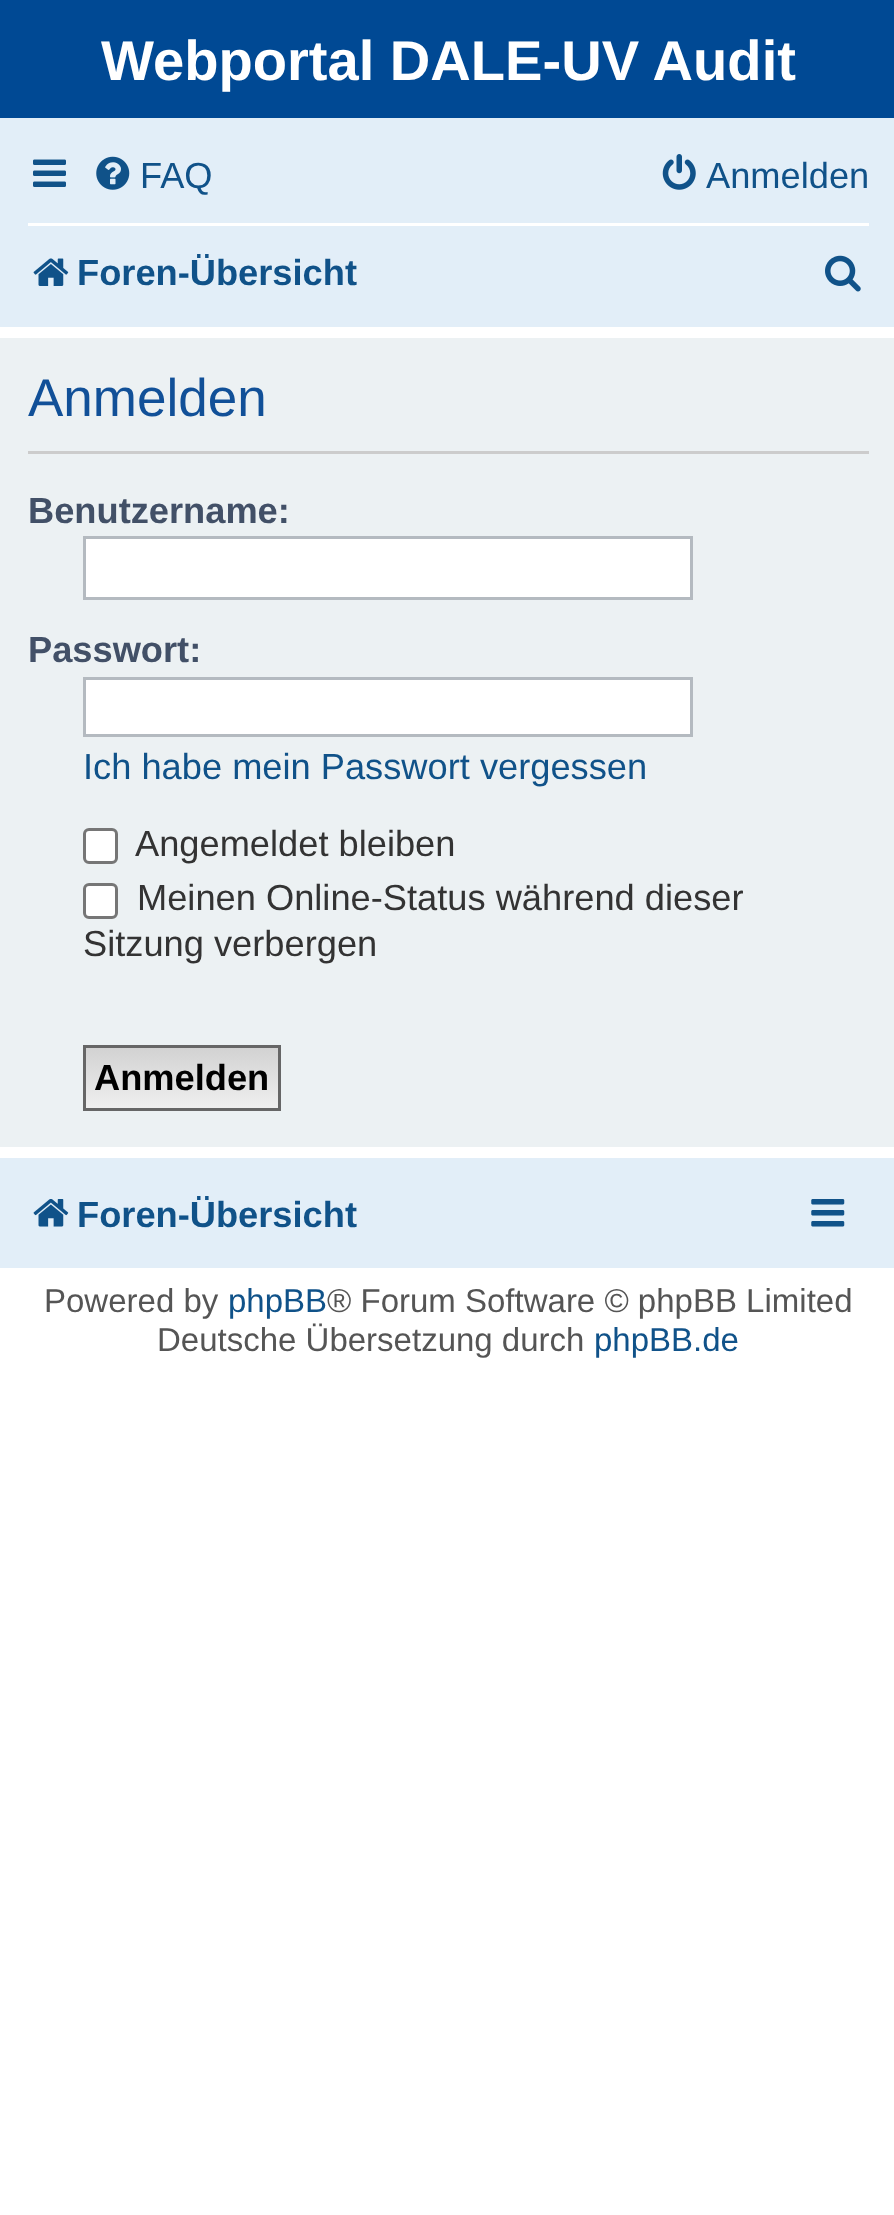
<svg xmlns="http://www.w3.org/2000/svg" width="894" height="2215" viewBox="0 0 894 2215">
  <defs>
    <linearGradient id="g1" gradientUnits="userSpaceOnUse" x1="182" y1="1048" x2="182" y2="1108"><stop offset="0" stop-color="#d2d2d2"/><stop offset="1" stop-color="#efefef"/></linearGradient>
  </defs>
  <rect width="100%" height="100%" fill="#fff"/>
  <path d="M0 0h894v118H0z" fill="#004994"/>
  <path d="M0 118h894v209H0z" fill="#e2eef8"/>
  <image x="33" y="159" width="33" height="28" href="img/1.png"/>
  <image x="96" y="156" width="34" height="34" href="img/2.png"/>
  <image x="662" y="154" width="34" height="36" href="img/3.png"/>
  <path d="M28 223h841v3H28z" fill="#fff"/>
  <image x="33" y="258" width="36" height="28" href="img/4.png"/>
  <image x="825" y="255" width="36" height="37" href="img/5.png"/>
  <path d="M0 338h894v809H0z" fill="#ecf1f3"/>
  <path d="M28 451h841v3H28z" fill="#ccc"/>
  <path d="M84.5 537.5h607v61H84.5z" fill="#fff" stroke="#b4bac0" stroke-width="3"/>
  <path d="M84.5 678.5h607v57H84.5z" fill="#fff" stroke="#b4bac0" stroke-width="3"/>
  <rect x="84.5" y="829.5" width="32" height="33" rx="4.5" fill="#fff" stroke="#767676" stroke-width="3"/>
  <rect x="84.5" y="884.5" width="32" height="33" rx="4.5" fill="#fff" stroke="#767676" stroke-width="3"/>
  <path d="M86 1048h192v60H86z" fill="url(#g1)"/>
  <path d="M84.5 1046.5h195v63H84.5z" fill="none" stroke="#666" stroke-width="3"/>
  <path d="M0 1158h894v110H0z" fill="#e2eef8"/>
  <image x="33" y="1199" width="36" height="28" href="img/6.png"/>
  <image x="811" y="1199" width="34" height="28" href="img/7.png"/>
  <text x="101" y="80" font-family="Liberation Sans" font-size="56.1" font-weight="bold" fill="#fff">Webportal DALE-UV Audit</text>
  <g font-family="Liberation Sans" font-size="36.25" fill="#105289">
    <text x="140" y="188">FAQ</text>
    <text x="706" y="188">Anmelden</text>
  </g>
  <text x="77" y="285" font-family="Liberation Sans" font-size="36.25" font-weight="bold" fill="#105289">Foren-Übersicht</text>
  <text x="28" y="416" font-family="Liberation Sans" font-size="53" fill="#115098">Anmelden</text>
  <g font-family="Liberation Sans" font-size="36.25" font-weight="bold" fill="#425067">
    <text x="28" y="523">Benutzername:</text>
    <text x="28" y="662">Passwort:</text>
  </g>
  <text x="83" y="779" font-family="Liberation Sans" font-size="36.25" fill="#105289">Ich habe mein Passwort vergessen</text>
  <g font-family="Liberation Sans" font-size="36.25" fill="#333">
    <text x="135" y="856">Angemeldet bleiben</text>
    <text x="137" y="910">Meinen Online-Status während dieser</text>
    <text x="83" y="956">Sitzung verbergen</text>
  </g>
  <text x="94" y="1090" font-family="Liberation Sans" font-size="36.25" font-weight="bold" fill="#000">Anmelden</text>
  <text x="77" y="1227" font-family="Liberation Sans" font-size="36.25" font-weight="bold" fill="#105289">Foren-Übersicht</text>
  <text x="44" y="1312" font-family="Liberation Sans" font-size="33" fill="#555">Powered by</text>
  <text x="228" y="1312" font-family="Liberation Sans" font-size="33" fill="#105289">phpBB</text>
  <g font-family="Liberation Sans" font-size="33" fill="#555">
    <text x="327" y="1312">® Forum Software © phpBB Limited</text>
    <text x="157" y="1351">Deutsche Übersetzung durch</text>
  </g>
  <text x="594" y="1351" font-family="Liberation Sans" font-size="33" fill="#105289">phpBB.de</text>
</svg>
